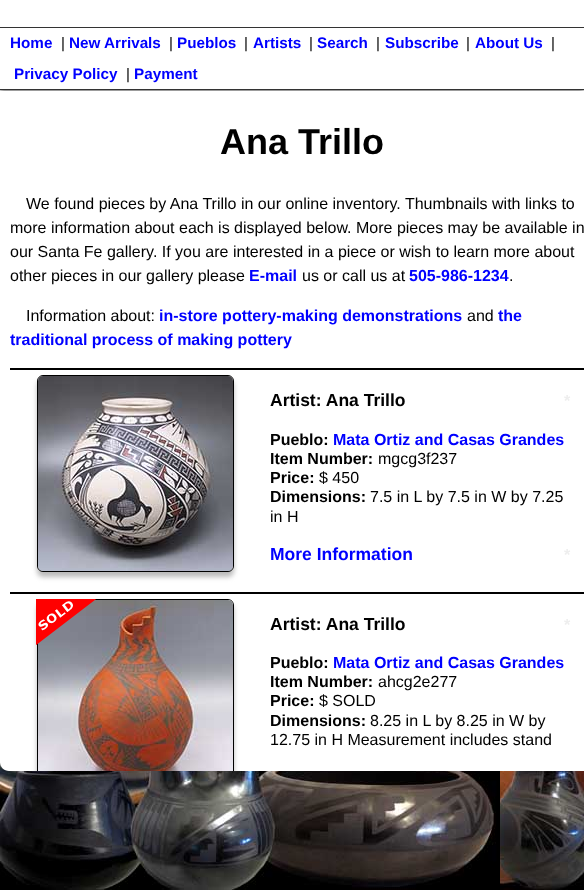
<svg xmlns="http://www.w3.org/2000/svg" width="584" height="890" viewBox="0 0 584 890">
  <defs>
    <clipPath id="clip1"><path d="M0 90h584v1H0z"/></clipPath>
    <clipPath id="clip2"><path d="M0 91H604V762C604 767 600 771 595 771H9C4 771 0 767 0 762Z"/></clipPath>
  </defs>
  <rect width="100%" height="100%" fill="#fff"/>
  <image x="0" y="762" width="584" height="128" href="img/1.png"/>
  <g clip-path="url(#clip1)">
    <path d="M0 32h584v63H0z" fill="#999" filter="blur(2.5px)"/>
  </g>
  <path d="M0 27h584v1H0z" fill="#333"/>
  <path d="M0 89h584v1H0z" fill="#333"/>
  <path d="M0 91H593V762C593 767 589 771 584 771H9C4 771 0 767 0 762Z" fill="#fff"/>
  <path d="M10 368h574v2H10z" fill="#000"/>
  <rect x="37" y="380" width="197" height="197" rx="6" fill="#bbb" filter="blur(2.5px)"/>
  <rect x="37.5" y="375.5" width="196" height="196" rx="5.5" fill="none" stroke="#000"/>
  <image x="38" y="376" width="195" height="195" href="img/2.png"/>
  <path d="M10 592h574v2H10z" fill="#000"/>
  <g clip-path="url(#clip2)">
    <rect x="37" y="604" width="197" height="197" rx="6" fill="#bbb" filter="blur(2.5px)"/>
  </g>
  <path d="M43 599C40 599 37 602 37 605V771H38V605C38 602 40 600 43 600H228C231 600 233 602 233 605V771H234V605C234 602 231 599 228 599Z" fill="#000"/>
  <image x="38" y="600" width="195" height="171" href="img/3.png"/>
  <image x="36" y="599" width="60" height="46" href="img/4.png"/>
  <text x="10" y="48" font-family="Liberation Sans" font-size="15.25" font-weight="bold" fill="#00f">Home</text>
  <text x="61" y="48" font-family="Liberation Sans" font-size="15.25" fill="#000">|</text>
  <text x="69" y="48" font-family="Liberation Sans" font-size="15.25" font-weight="bold" fill="#00f">New Arrivals</text>
  <text x="169" y="48" font-family="Liberation Sans" font-size="15.25" fill="#000">|</text>
  <text x="177" y="48" font-family="Liberation Sans" font-size="15.25" font-weight="bold" fill="#00f">Pueblos</text>
  <text x="244" y="48" font-family="Liberation Sans" font-size="15.25" fill="#000">|</text>
  <text x="253" y="48" font-family="Liberation Sans" font-size="15.25" font-weight="bold" fill="#00f">Artists</text>
  <text x="309" y="48" font-family="Liberation Sans" font-size="15.25" fill="#000">|</text>
  <text x="317" y="48" font-family="Liberation Sans" font-size="15.25" font-weight="bold" fill="#00f">Search</text>
  <text x="376" y="48" font-family="Liberation Sans" font-size="15.25" fill="#000">|</text>
  <text x="385" y="48" font-family="Liberation Sans" font-size="15.25" font-weight="bold" fill="#00f">Subscribe</text>
  <text x="466" y="48" font-family="Liberation Sans" font-size="15.25" fill="#000">|</text>
  <text x="475" y="48" font-family="Liberation Sans" font-size="15.25" font-weight="bold" fill="#00f">About Us</text>
  <text x="551" y="48" font-family="Liberation Sans" font-size="15.25" fill="#000">|</text>
  <text x="14" y="79" font-family="Liberation Sans" font-size="15.25" font-weight="bold" fill="#00f">Privacy Policy</text>
  <text x="126" y="79" font-family="Liberation Sans" font-size="15.25" fill="#000">|</text>
  <text x="134" y="79" font-family="Liberation Sans" font-size="15.25" font-weight="bold" fill="#00f">Payment</text>
  <text x="220" y="154" font-family="Liberation Sans" font-size="36" font-weight="bold" fill="#000">Ana Trillo</text>
  <g font-family="Liberation Sans" font-size="16" fill="#000">
    <text x="26" y="209">We found pieces by Ana Trillo in our online inventory. Thumbnails with links to</text>
    <text x="10" y="233">more information about each is displayed below. More pieces may be available in</text>
    <text x="10" y="257">our Santa Fe gallery. If you are interested in a piece or wish to learn more about</text>
    <text x="10" y="281">other pieces in our gallery please</text>
  </g>
  <text x="249" y="281" font-family="Liberation Sans" font-size="16" font-weight="bold" fill="#00f">E-mail</text>
  <text x="302" y="281" font-family="Liberation Sans" font-size="16" fill="#000">us or call us at</text>
  <text x="409" y="281" font-family="Liberation Sans" font-size="16" font-weight="bold" fill="#00f">505-986-1234</text>
  <g font-family="Liberation Sans" font-size="16" fill="#000">
    <text x="509" y="281">.</text>
    <text x="26" y="321">Information about:</text>
  </g>
  <text x="159" y="321" font-family="Liberation Sans" font-size="16" font-weight="bold" fill="#00f">in-store pottery-making demonstrations</text>
  <text x="467" y="321" font-family="Liberation Sans" font-size="16" fill="#000">and</text>
  <g font-family="Liberation Sans" font-size="16" font-weight="bold" fill="#00f">
    <text x="498" y="321">the</text>
    <text x="10" y="345">traditional process of making pottery</text>
  </g>
  <text x="270" y="406" font-family="Liberation Sans" font-size="17.5" font-weight="bold" fill="#000">Artist: Ana Trillo</text>
  <text x="564" y="406" font-family="Liberation Sans" font-size="16" font-weight="bold" fill="#eee">*</text>
  <text x="270" y="445" font-family="Liberation Sans" font-size="16" font-weight="bold" fill="#000">Pueblo:</text>
  <text x="333" y="445" font-family="Liberation Sans" font-size="16" font-weight="bold" fill="#00f">Mata Ortiz and Casas Grandes</text>
  <text x="270" y="464" font-family="Liberation Sans" font-size="16" font-weight="bold" fill="#000">Item Number:</text>
  <text x="378" y="464" font-family="Liberation Sans" font-size="16" fill="#000">mgcg3f237</text>
  <text x="270" y="483" font-family="Liberation Sans" font-size="16" font-weight="bold" fill="#000">Price:</text>
  <text x="319" y="483" font-family="Liberation Sans" font-size="16" fill="#000">$ 450</text>
  <text x="270" y="502" font-family="Liberation Sans" font-size="16" font-weight="bold" fill="#000">Dimensions:</text>
  <g font-family="Liberation Sans" font-size="16" fill="#000">
    <text x="370" y="502">7.5 in L by 7.5 in W by 7.25</text>
    <text x="270" y="522">in H</text>
  </g>
  <text x="270" y="560" font-family="Liberation Sans" font-size="17.5" font-weight="bold" fill="#00f">More Information</text>
  <text x="564" y="560" font-family="Liberation Sans" font-size="16" font-weight="bold" fill="#eee">*</text>
  <text x="270" y="630" font-family="Liberation Sans" font-size="17.5" font-weight="bold" fill="#000">Artist: Ana Trillo</text>
  <text x="564" y="630" font-family="Liberation Sans" font-size="16" font-weight="bold" fill="#eee">*</text>
  <text x="270" y="668" font-family="Liberation Sans" font-size="16" font-weight="bold" fill="#000">Pueblo:</text>
  <text x="333" y="668" font-family="Liberation Sans" font-size="16" font-weight="bold" fill="#00f">Mata Ortiz and Casas Grandes</text>
  <text x="270" y="687" font-family="Liberation Sans" font-size="16" font-weight="bold" fill="#000">Item Number:</text>
  <text x="378" y="687" font-family="Liberation Sans" font-size="16" fill="#000">ahcg2e277</text>
  <text x="270" y="706" font-family="Liberation Sans" font-size="16" font-weight="bold" fill="#000">Price:</text>
  <text x="319" y="706" font-family="Liberation Sans" font-size="16" fill="#000">$ SOLD</text>
  <text x="270" y="726" font-family="Liberation Sans" font-size="16" font-weight="bold" fill="#000">Dimensions:</text>
  <g font-family="Liberation Sans" font-size="16" fill="#000">
    <text x="370" y="726">8.25 in L by 8.25 in W by</text>
    <text x="270" y="745">12.75 in H Measurement includes stand</text>
  </g>
</svg>
